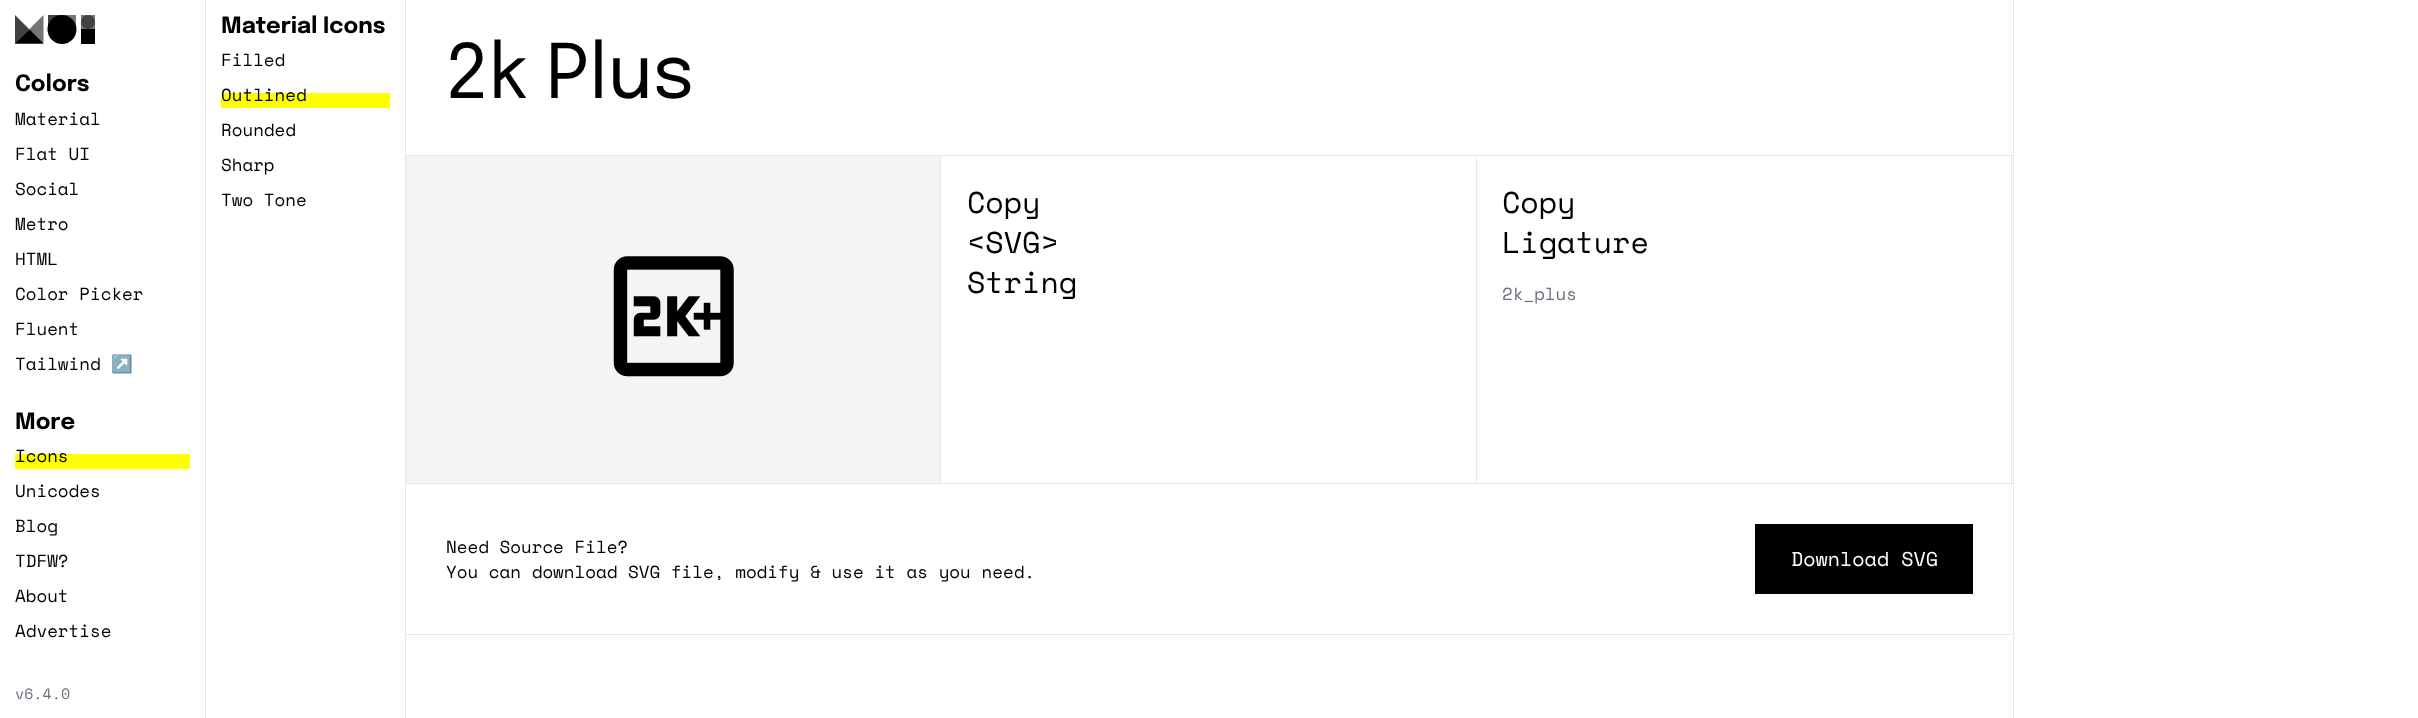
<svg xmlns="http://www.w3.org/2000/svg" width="2418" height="718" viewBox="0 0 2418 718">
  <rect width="100%" height="100%" fill="#fff"/>
  <path d="M205 0h1v718H205z" fill="#e5e7eb"/>
  <path d="M81 15h14v14H81z" fill="#757575"/>
  <path d="M81 29h14v15H81z" fill="#000"/>
  <path d="M62 15h14v11H62z" fill="#757575"/>
  <path d="M48 15h14v11H48z" fill="#424242"/>
  <path d="M43.5 43.5H15V15L43.5 43.5" fill="#424242"/>
  <path d="M15 43.5H43.5V15Z" fill="#757575"/>
  <path d="M15 43.5H43.5L29.5 29.5Z" fill="#000"/>
  <circle cx="62" cy="29.5" r="14.5" fill="#000"/>
  <circle cx="88" cy="22" r="7" fill="#424242"/>
  <path d="M15 454h175v15H15z" fill="#ff0"/>
  <path d="M405 0h1v718H405z" fill="#e5e7eb"/>
  <path d="M221 93h169v15H221z" fill="#ff0"/>
  <path d="M406 155h1607v1H406z" fill="#e5e7eb"/>
  <path d="M406 156h534v327H406z" fill="#f3f4f6"/>
  <path d="M940 156h1v328H940z" fill="#e5e7eb"/>
  <path d="M406 483h535v1H406z" fill="#e5e7eb"/>
  <image x="613" y="256" width="121" height="121" href="img/1.png"/>
  <path d="M1476 156h1v328H1476z" fill="#e5e7eb"/>
  <path d="M941 483h537v1H941z" fill="#e5e7eb"/>
  <path d="M2011 156h1v328H2011z" fill="#e5e7eb"/>
  <path d="M1478 483h535v1H1478z" fill="#e5e7eb"/>
  <path d="M406 634h1607v1H406z" fill="#e5e7eb"/>
  <path d="M1755 524h218v70H1755z" fill="#000"/>
  <path d="M2013 0h1v718H2013z" fill="#e5e7eb"/>
  <text x="15" y="91" font-family="Epilogue" font-size="22.5" font-weight="bold" fill="#000">Colors</text>
  <g font-family="Space Mono" font-size="17.5" fill="#000">
    <text x="15" y="125">Material</text>
    <text x="15" y="160">Flat UI</text>
    <text x="15" y="195">Social</text>
    <text x="15" y="230">Metro</text>
    <text x="15" y="265">HTML</text>
    <text x="15" y="300">Color Picker</text>
    <text x="15" y="335">Fluent</text>
    <text x="15" y="370">Tailwind</text>
  </g>
  <text x="111" y="370" font-family="Noto Color Emoji" font-size="17.5" fill="#000">↗️</text>
  <text x="15" y="429" font-family="Epilogue" font-size="22.5" font-weight="bold" fill="#000">More</text>
  <g font-family="Space Mono" font-size="17.5" fill="#000">
    <text x="15" y="462">Icons</text>
    <text x="15" y="497">Unicodes</text>
    <text x="15" y="532">Blog</text>
    <text x="15" y="567">TDFW?</text>
    <text x="15" y="602">About</text>
    <text x="15" y="637">Advertise</text>
  </g>
  <text x="15" y="699" font-family="Space Mono" font-size="15" fill="#6b7280">v6.4.0</text>
  <text x="221" y="33" font-family="Epilogue" font-size="22.5" font-weight="bold" fill="#000">Material Icons</text>
  <g font-family="Space Mono" font-size="17.5" fill="#000">
    <text x="221" y="66">Filled</text>
    <text x="221" y="101">Outlined</text>
    <text x="221" y="136">Rounded</text>
    <text x="221" y="171">Sharp</text>
    <text x="221" y="206">Two Tone</text>
  </g>
  <text x="446" y="98" font-family="Epilogue" font-size="75" fill="#000">2k Plus</text>
  <g font-family="Space Mono" font-size="30" fill="#000">
    <text x="967" y="213">Copy</text>
    <text x="967" y="253">&lt;SVG&gt;</text>
    <text x="967" y="293">String</text>
    <text x="1502" y="213">Copy</text>
    <text x="1502" y="253">Ligature</text>
  </g>
  <text x="1502" y="300" font-family="Space Mono" font-size="17.5" fill="#6b7280">2k_plus</text>
  <g font-family="Space Mono" font-size="17.5" fill="#000">
    <text x="446" y="553">Need Source File?</text>
    <text x="446" y="578">You can download SVG file, modify &amp; use it as you need.</text>
  </g>
  <text x="1791" y="566" font-family="Space Mono" font-size="20" fill="#fff">Download SVG</text>
</svg>
